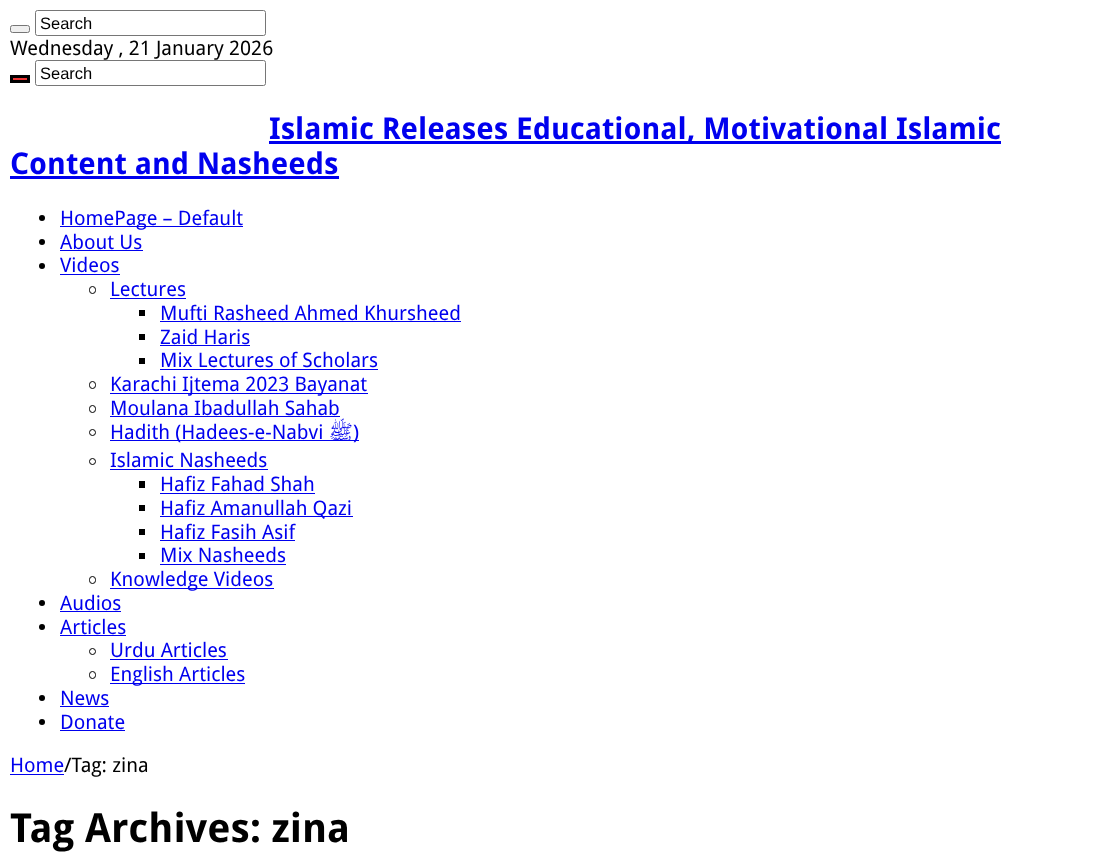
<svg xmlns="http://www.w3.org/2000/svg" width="1110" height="865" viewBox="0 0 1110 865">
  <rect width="100%" height="100%" fill="#fff"/>
  <rect x="10.5" y="25.5" width="19" height="7" rx="2" fill="#efefef" stroke="#767676"/>
  <rect x="35.5" y="10.5" width="230" height="25" rx="2" fill="none" stroke="#767676"/>
  <path d="M11.5 76.5h17v5H11.5z" fill="#ef3636" stroke="#000" stroke-width="3"/>
  <rect x="35.5" y="60.5" width="230" height="25" rx="2" fill="none" stroke="#767676"/>
  <path d="M269 141h732v3H269z" fill="#00e"/>
  <path d="M10 176h329v3H10z" fill="#00e"/>
  <circle cx="42" cy="218" r="3" fill="#000"/>
  <path d="M60 226h183v1H60z" fill="#00e"/>
  <circle cx="42" cy="242" r="3" fill="#000"/>
  <path d="M60 250h83v1H60z" fill="#00e"/>
  <circle cx="42" cy="266" r="3" fill="#000"/>
  <path d="M60 274h60v1H60z" fill="#00e"/>
  <rect x="89.5" y="286.5" width="6" height="7" rx="3" fill="none" stroke="#000"/>
  <path d="M110 298h76v1H110z" fill="#00e"/>
  <path d="M139 310h6v6H139z" fill="#000"/>
  <path d="M160 321h301v1H160z" fill="#00e"/>
  <path d="M139 334h6v6H139z" fill="#000"/>
  <path d="M160 345h90v1H160z" fill="#00e"/>
  <path d="M139 358h6v6H139z" fill="#000"/>
  <path d="M160 369h218v1H160z" fill="#00e"/>
  <rect x="89.5" y="381.5" width="6" height="7" rx="3" fill="none" stroke="#000"/>
  <path d="M110 393h258v1H110z" fill="#00e"/>
  <rect x="89.5" y="405.5" width="6" height="7" rx="3" fill="none" stroke="#000"/>
  <path d="M110 416h230v1H110z" fill="#00e"/>
  <circle cx="92.5" cy="432.5" r="3" fill="none" stroke="#000"/>
  <path d="M110 440h249v1H110z" fill="#00e"/>
  <circle cx="92.5" cy="461.5" r="3" fill="none" stroke="#000"/>
  <path d="M110 469h158v1H110z" fill="#00e"/>
  <path d="M139 481h6v7H139z" fill="#000"/>
  <path d="M160 493h155v1H160z" fill="#00e"/>
  <path d="M139 505h6v6H139z" fill="#000"/>
  <path d="M160 516h193v1H160z" fill="#00e"/>
  <path d="M139 529h6v6H139z" fill="#000"/>
  <path d="M160 540h135v1H160z" fill="#00e"/>
  <path d="M139 553h6v6H139z" fill="#000"/>
  <path d="M160 564h126v1H160z" fill="#00e"/>
  <rect x="89.5" y="576.5" width="6" height="7" rx="3" fill="none" stroke="#000"/>
  <path d="M110 588h164v1H110z" fill="#00e"/>
  <circle cx="42" cy="603" r="3" fill="#000"/>
  <path d="M60 611h61v1H60z" fill="#00e"/>
  <circle cx="42" cy="627" r="3" fill="#000"/>
  <path d="M60 635h66v1H60z" fill="#00e"/>
  <circle cx="92.5" cy="651.5" r="3" fill="none" stroke="#000"/>
  <path d="M110 659h118v1H110z" fill="#00e"/>
  <rect x="89.5" y="671.5" width="6" height="7" rx="3" fill="none" stroke="#000"/>
  <path d="M110 683h135v1H110z" fill="#00e"/>
  <circle cx="42" cy="698" r="3" fill="#000"/>
  <path d="M60 706h49v1H60z" fill="#00e"/>
  <circle cx="42" cy="722" r="3" fill="#000"/>
  <path d="M60 730h65v1H60z" fill="#00e"/>
  <path d="M10 774h54v1H10z" fill="#00e"/>
  <text x="40" y="29" font-family="Liberation Sans" font-size="16.5" fill="#000">Search</text>
  <text x="10" y="55" font-family="Droid Sans" font-size="20" fill="#000">Wednesday , 21 January 2026</text>
  <text x="40" y="79" font-family="Liberation Sans" font-size="16.5" fill="#000">Search</text>
  <g font-family="Droid Sans" font-size="30" font-weight="bold" fill="#00e">
    <text x="269" y="139">Islamic Releases Educational, Motivational Islamic</text>
    <text x="10" y="174">Content and Nasheeds</text>
  </g>
  <g font-family="Droid Sans" font-size="20" fill="#00e">
    <text x="60" y="225">HomePage – Default</text>
    <text x="60" y="249">About Us</text>
    <text x="60" y="272">Videos</text>
    <text x="110" y="296">Lectures</text>
    <text x="160" y="320">Mufti Rasheed Ahmed Khursheed</text>
    <text x="160" y="344">Zaid Haris</text>
    <text x="160" y="367">Mix Lectures of Scholars</text>
    <text x="110" y="391">Karachi Ijtema 2023 Bayanat</text>
    <text x="110" y="415">Moulana Ibadullah Sahab</text>
    <text x="110" y="439">Hadith (Hadees-e-Nabvi</text>
  </g>
  <text x="353" y="439" font-family="Lateef" font-size="20" direction="rtl" fill="#00e">ﷺ</text>
  <g font-family="Droid Sans" font-size="20" fill="#00e">
    <text x="353" y="439">)</text>
    <text x="110" y="467">Islamic Nasheeds</text>
    <text x="160" y="491">Hafiz Fahad Shah</text>
    <text x="160" y="515">Hafiz Amanullah Qazi</text>
    <text x="160" y="539">Hafiz Fasih Asif</text>
    <text x="160" y="562">Mix Nasheeds</text>
    <text x="110" y="586">Knowledge Videos</text>
    <text x="60" y="610">Audios</text>
    <text x="60" y="634">Articles</text>
    <text x="110" y="657">Urdu Articles</text>
    <text x="110" y="681">English Articles</text>
    <text x="60" y="705">News</text>
    <text x="60" y="729">Donate</text>
    <text x="10" y="772">Home</text>
  </g>
  <text x="64" y="772" font-family="Droid Sans" font-size="20" fill="#000">/Tag: zina</text>
  <text x="10" y="842" font-family="Droid Sans" font-size="40" font-weight="bold" fill="#000">Tag Archives: zina</text>
</svg>
